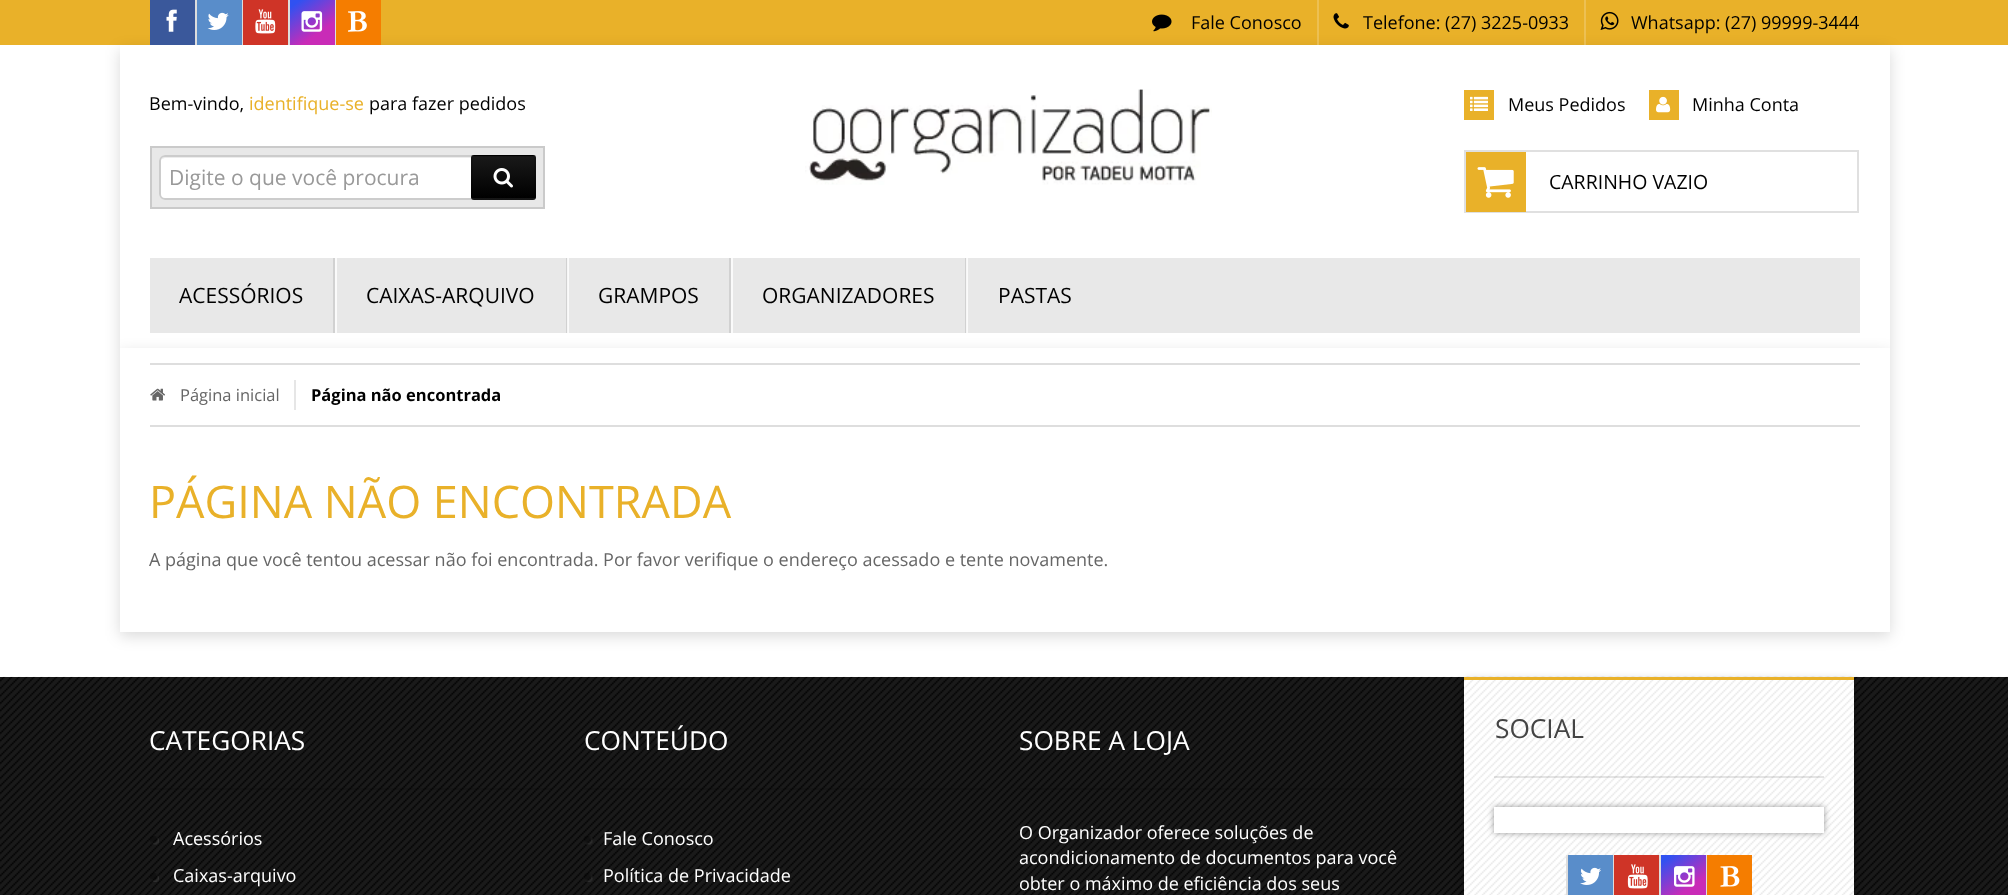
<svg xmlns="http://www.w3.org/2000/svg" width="2008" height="895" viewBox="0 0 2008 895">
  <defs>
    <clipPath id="clip1"><path d="M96 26H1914V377H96ZM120 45H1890V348H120Z" clip-rule="evenodd"/></clipPath>
    <linearGradient id="g1" gradientUnits="userSpaceOnUse" x1="294" y1="-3.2" x2="330" y2="48"><stop offset="0.1" stop-color="#3051f1"/><stop offset="0.7" stop-color="#c92bb7"/></linearGradient>
    <linearGradient id="g2" gradientUnits="userSpaceOnUse" x1="503" y1="114" x2="503" y2="156"><stop offset="0" stop-color="#fff" stop-opacity="0.1"/><stop offset="1" stop-color="#000" stop-opacity="0.1"/></linearGradient>
    <linearGradient id="g3" gradientUnits="userSpaceOnUse" x1="503" y1="156" x2="503" y2="198"><stop offset="0" stop-color="#fff" stop-opacity="0.1"/><stop offset="1" stop-color="#000" stop-opacity="0.1"/></linearGradient>
    <linearGradient id="g4" gradientUnits="userSpaceOnUse" x1="503" y1="198" x2="503" y2="240"><stop offset="0" stop-color="#fff" stop-opacity="0.1"/><stop offset="1" stop-color="#000" stop-opacity="0.1"/></linearGradient>
    <linearGradient id="g5" gradientUnits="userSpaceOnUse" x1="1665" y1="852" x2="1701" y2="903"><stop offset="0.1" stop-color="#3051f1"/><stop offset="0.7" stop-color="#c92bb7"/></linearGradient>
  </defs>
  <rect width="100%" height="100%" fill="#fff"/>
  <path d="M0 0h2008v45H0z" fill="#e9b129"/>
  <g clip-path="url(#clip1)">
    <path d="M120 50h1770v303H120z" fill="#00000026" filter="blur(7.5px)"/>
  </g>
  <path d="M150 0h45v45H150z" fill="#3a589b"/>
  <image x="166" y="9" width="11" height="23" href="img/1.png"/>
  <path d="M195 0h2v45H195z" fill="#ddd"/>
  <path d="M197 0h45v45H197z" fill="#598dca"/>
  <image x="207" y="12" width="22" height="18" href="img/2.png"/>
  <path d="M242 0h1v45H242z" fill="#ddd"/>
  <path d="M243 0h45v45H243z" fill="#cf3427"/>
  <image x="255" y="9" width="21" height="25" href="img/3.png"/>
  <path d="M288 0h2v45H288z" fill="#ddd"/>
  <path d="M290 0h45v45H290z" fill="url(#g1)"/>
  <image x="301" y="11" width="22" height="21" href="img/4.png"/>
  <path d="M335 0h1v45H335z" fill="#ddd"/>
  <path d="M336 0h45v45H336z" fill="#f57d00"/>
  <image x="348" y="11" width="19" height="21" href="img/5.png"/>
  <image x="1152" y="14" width="20" height="18" href="img/6.png"/>
  <path d="M1317 0h2v45H1317z" fill="#ffffff33"/>
  <image x="1333" y="13" width="16" height="16" href="img/7.png"/>
  <path d="M1584 0h2v45H1584z" fill="#ffffff33"/>
  <image x="1600" y="11" width="19" height="19" href="img/8.png"/>
  <path d="M151 147h393v61H151z" fill="#e8e8e8" stroke="#cacaca" stroke-width="2"/>
  <rect x="159" y="155" width="374" height="45" rx="6" fill="#fff"/>
  <path d="M165 158H526C529 158 531 160 531 162V161C531 158 529 156 526 156H166C164 156 162 158 161 160C162 159 164 158 165 158Z" fill="#ececec"/>
  <rect x="160" y="156" width="372" height="43" rx="5" fill="none" stroke="#ccc" stroke-width="2"/>
  <rect x="471" y="155" width="65" height="45" rx="3" fill="#000"/>
  <path d="M471 155h65v1H471z" fill="url(#g2)"/>
  <path d="M471 156h65v42H471z" fill="url(#g3)"/>
  <path d="M471 198h65v2H471z" fill="url(#g4)"/>
  <rect x="472" y="156" width="63" height="43" rx="2" fill="none" stroke="#00000021" stroke-width="2"/>
  <image x="493" y="168" width="20" height="20" href="img/9.png"/>
  <image x="805" y="89" width="407" height="96" href="img/10.png"/>
  <path d="M1464 90h30v30H1464z" fill="#e9b129"/>
  <image x="1470" y="96" width="18" height="15" href="img/11.png"/>
  <path d="M1649 90h30v30H1649z" fill="#e9b129"/>
  <image x="1656" y="96" width="15" height="17" href="img/12.png"/>
  <path d="M1465 151h393v61H1465z" fill="none" stroke="#e0e0e0" stroke-width="2"/>
  <path d="M1466 152h60v60H1466z" fill="#e9b129"/>
  <image x="1477" y="167" width="37" height="31" href="img/13.png"/>
  <path d="M150 258h1710v75H150z" fill="#e8e8e8"/>
  <path d="M967 258h1v75H967z" fill="#fafafa"/>
  <path d="M568 258h1v75H568z" fill="#fafafa"/>
  <path d="M120 353h1770v283H120z" fill="#00000026" filter="blur(7.5px)"/>
  <path d="M333 258h2v75H333z" fill="#d1d1d1"/>
  <path d="M566 258h1v75H566z" fill="#d1d1d1"/>
  <path d="M567 258h1v75H567z" fill="#f6f6f6"/>
  <path d="M335 258h2v75H335z" fill="#fafafa"/>
  <path d="M729 258h2v75H729z" fill="#d1d1d1"/>
  <path d="M965 258h1v75H965z" fill="#d1d1d1"/>
  <path d="M966 258h1v75H966z" fill="#f6f6f6"/>
  <path d="M731 258h2v75H731z" fill="#fafafa"/>
  <path d="M120 348h1770v284H120z" fill="#fff"/>
  <path d="M150 363h1710v2H150z" fill="#dedede"/>
  <path d="M150 425h1710v2H150z" fill="#dedede"/>
  <image x="150" y="388" width="15" height="13" href="img/14.png"/>
  <path d="M294 380h2v30H294z" fill="#e6e6e6"/>
  <path d="M0 677h2008v218H0z" fill="#000"/>
  <image x="0" y="676" width="2008" height="219" href="img/15.png"/>
  <path d="M150 788h402v2H150z" fill="#0000001a"/>
  <image x="150" y="836" width="9" height="9" href="img/16.png"/>
  <image x="150" y="873" width="9" height="9" href="img/17.png"/>
  <path d="M584 788h402v2H584z" fill="#0000001a"/>
  <image x="584" y="836" width="9" height="9" href="img/18.png"/>
  <image x="584" y="873" width="9" height="9" href="img/19.png"/>
  <path d="M1019 788h402v2H1019z" fill="#0000001a"/>
  <path d="M1464 681h390v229H1464z" fill="#0000004d" filter="blur(5px)"/>
  <path d="M1464 680h390v215H1464z" fill="#fff"/>
  <image x="1464" y="676" width="390" height="219" href="img/20.png"/>
  <path d="M1464 677h390v3H1464z" fill="#e9b129"/>
  <path d="M1494 776h330v2H1494z" fill="#0000001a"/>
  <path d="M1494 807h330v26H1494z" fill="#00000066" filter="blur(3px)"/>
  <path d="M1494 807h330v26H1494z" fill="#fff"/>
  <path d="M1566 855h2v40H1566z" fill="#ddd"/>
  <path d="M1568 855h45v40H1568z" fill="#598dca"/>
  <image x="1580" y="867" width="21" height="18" href="img/21.png"/>
  <path d="M1613 855h1v40H1613z" fill="#ddd"/>
  <path d="M1614 855h45v40H1614z" fill="#cf3427"/>
  <image x="1627" y="864" width="21" height="25" href="img/22.png"/>
  <path d="M1659 855h2v40H1659z" fill="#ddd"/>
  <path d="M1661 855h45v40H1661z" fill="url(#g5)"/>
  <image x="1674" y="866" width="21" height="21" href="img/23.png"/>
  <path d="M1706 855h1v40H1706z" fill="#ddd"/>
  <path d="M1707 855h45v40H1707z" fill="#f57d00"/>
  <image x="1720" y="866" width="20" height="21" href="img/24.png"/>
  <g font-family="Open Sans" font-size="18" fill="#000">
    <text x="1191" y="29">Fale Conosco</text>
    <text x="1363" y="29">Telefone: (27) 3225-0933</text>
    <text x="1631" y="29">Whatsapp: (27) 99999-3444</text>
    <text x="149" y="110">Bem-vindo,</text>
  </g>
  <text x="249" y="110" font-family="Open Sans" font-size="18" fill="#e9b129">identifique-se</text>
  <text x="369" y="110" font-family="Open Sans" font-size="18" fill="#000">para fazer pedidos</text>
  <text x="169" y="185" font-family="Open Sans" font-size="21" fill="#999">Digite o que você procura</text>
  <g font-family="Open Sans" font-size="18" fill="#000">
    <text x="1508" y="111">Meus Pedidos</text>
    <text x="1692" y="111">Minha Conta</text>
  </g>
  <text x="1549" y="189" font-family="Open Sans" font-size="19.5" fill="#000">CARRINHO VAZIO</text>
  <g font-family="Open Sans" font-size="21" fill="#000">
    <text x="179" y="303">ACESSÓRIOS</text>
    <text x="366" y="303">CAIXAS-ARQUIVO</text>
    <text x="598" y="303">GRAMPOS</text>
    <text x="762" y="303">ORGANIZADORES</text>
    <text x="998" y="303">PASTAS</text>
  </g>
  <text x="180" y="401" font-family="Open Sans" font-size="16.5" fill="#666">Página inicial</text>
  <text x="311" y="401" font-family="Open Sans" font-size="16.5" font-weight="bold" fill="#000">Página não encontrada</text>
  <text x="149" y="518" font-family="Open Sans" font-size="45" fill="#e9b129">PÁGINA NÃO ENCONTRADA</text>
  <text x="149" y="566" font-family="Open Sans" font-size="18" fill="#666">A página que você tentou acessar não foi encontrada. Por favor verifique o endereço acessado e tente novamente.</text>
  <text x="149" y="750" font-family="Open Sans" font-size="26.25" fill="#fff">CATEGORIAS</text>
  <g font-family="Open Sans" font-size="18" fill="#fff">
    <text x="173" y="845">Acessórios</text>
    <text x="173" y="882">Caixas-arquivo</text>
  </g>
  <text x="584" y="750" font-family="Open Sans" font-size="26.25" fill="#fff">CONTEÚDO</text>
  <g font-family="Open Sans" font-size="18" fill="#fff">
    <text x="603" y="845">Fale Conosco</text>
    <text x="603" y="882">Política de Privacidade</text>
  </g>
  <text x="1019" y="750" font-family="Open Sans" font-size="26.25" fill="#fff">SOBRE A LOJA</text>
  <g font-family="Open Sans" font-size="18" fill="#fff">
    <text x="1019" y="839">O Organizador oferece soluções de</text>
    <text x="1019" y="864">acondicionamento de documentos para você</text>
    <text x="1019" y="890">obter o máximo de eficiência dos seus</text>
  </g>
  <text x="1495" y="738" font-family="Open Sans" font-size="26.25" fill="#444">SOCIAL</text>
</svg>
